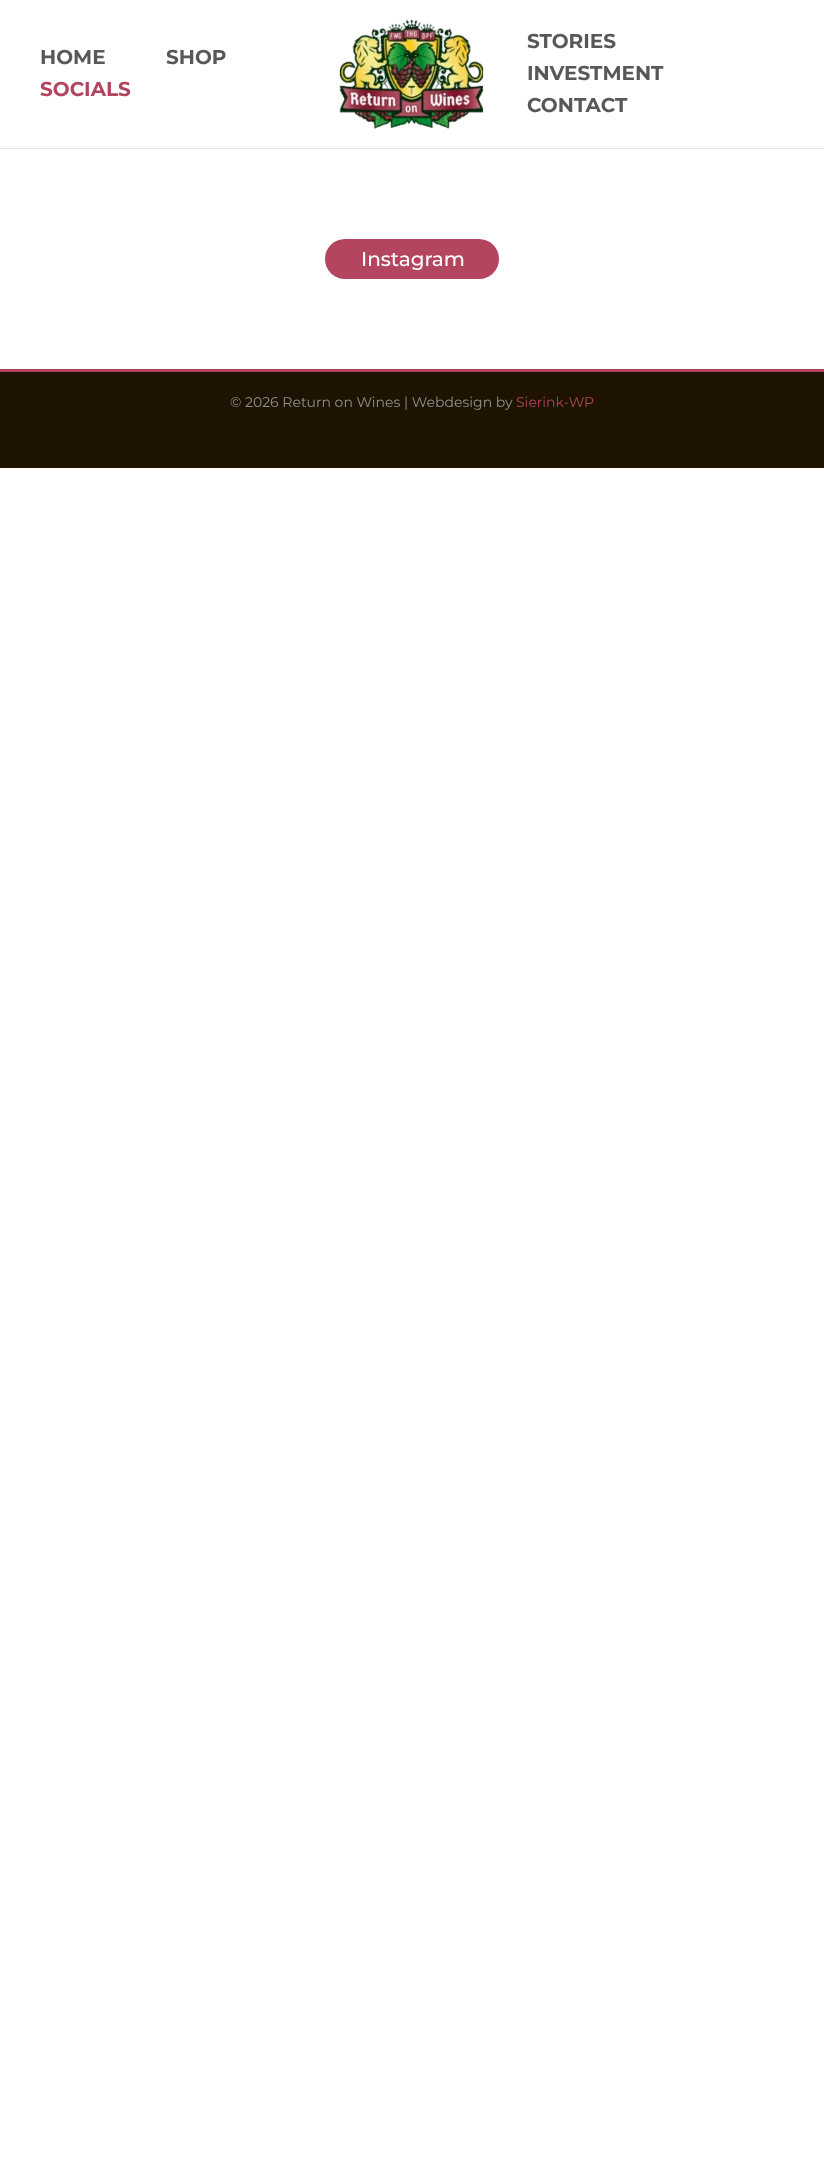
<svg xmlns="http://www.w3.org/2000/svg" width="824" height="2163" viewBox="0 0 824 2163">
  <rect width="100%" height="100%" fill="#fff"/>
  <path d="M0 148h824v1H0z" fill="#e5e5e5"/>
  <image x="339" y="19" width="145" height="110" href="img/1.png"/>
  <rect x="325" y="239" width="174" height="40" rx="20" fill="#b3455f"/>
  <path d="M0 372h824v96H0z" fill="#1e1300"/>
  <path d="M0 369h824v3H0z" fill="#b2455e"/>
  <g font-family="Montserrat" font-size="20" font-weight="bold" fill="#585858">
    <text x="40" y="64">HOME</text>
    <text x="166" y="64">SHOP</text>
  </g>
  <text x="40" y="96" font-family="Montserrat" font-size="20" font-weight="bold" fill="#b2455e">SOCIALS</text>
  <g font-family="Montserrat" font-size="20" font-weight="bold" fill="#585858">
    <text x="527" y="48">STORIES</text>
    <text x="527" y="80">INVESTMENT</text>
    <text x="527" y="112">CONTACT</text>
  </g>
  <text x="361" y="266" font-family="Montserrat" font-size="20" font-weight="500" fill="#fff">Instagram</text>
  <text x="230" y="407" font-family="Montserrat" font-size="14" fill="#919191">© 2026 Return on Wines | Webdesign by</text>
  <text x="516" y="407" font-family="Montserrat" font-size="14" fill="#b2455e">Sierink-WP</text>
</svg>
